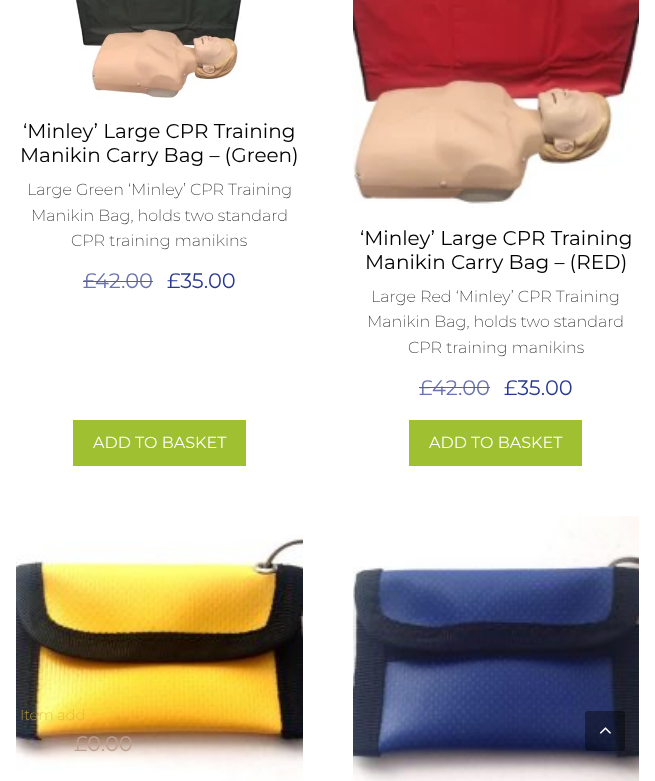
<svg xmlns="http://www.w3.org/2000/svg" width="655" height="781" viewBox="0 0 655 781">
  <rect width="100%" height="100%" fill="#fff"/>
  <image x="73" y="0" width="169" height="99" href="img/1.png"/>
  <path d="M73 420h173v46H73z" fill="#9fc131"/>
  <image x="353" y="0" width="286" height="208" href="img/2.png"/>
  <path d="M409 420h173v46H409z" fill="#9fc131"/>
  <image x="16" y="535" width="287" height="246" href="img/3.png"/>
  <image x="353" y="516" width="286" height="265" href="img/4.png"/>
  <rect x="585" y="711" width="40" height="40" rx="3" fill="#00000066"/>
  <image x="599" y="727" width="12" height="7" href="img/5.png"/>
  <g font-family="Montserrat" font-size="20" fill="#000">
    <text x="23" y="138">‘Minley’ Large CPR Training</text>
    <text x="20" y="162">Manikin Carry Bag – (Green)</text>
  </g>
  <g font-family="Montserrat" font-size="16" font-weight="200" fill="#222">
    <text x="27" y="195">Large Green ‘Minley’ CPR Training</text>
    <text x="31" y="221">Manikin Bag, holds two standard</text>
    <text x="71" y="246">CPR training manikins</text>
  </g>
  <text x="83" y="288" font-family="Montserrat" font-size="21" fill="#6974b1">£</text>
  <path d="M83 281h12v1H83z" fill="#646464"/>
  <text x="95" y="288" font-family="Montserrat" font-size="21" fill="#6974b1">42.00</text>
  <path d="M95 281h58v1H95z" fill="#646464"/>
  <text x="167" y="288" font-family="Montserrat" font-size="21" fill="#283990">£35.00</text>
  <text x="93" y="448" font-family="Montserrat" font-size="16" fill="#fff">ADD TO BASKET</text>
  <g font-family="Montserrat" font-size="20" fill="#000">
    <text x="360" y="245">‘Minley’ Large CPR Training</text>
    <text x="365" y="269">Manikin Carry Bag – (RED)</text>
  </g>
  <g font-family="Montserrat" font-size="16" font-weight="200" fill="#222">
    <text x="371" y="302">Large Red ‘Minley’ CPR Training</text>
    <text x="367" y="327">Manikin Bag, holds two standard</text>
    <text x="408" y="353">CPR training manikins</text>
  </g>
  <text x="419" y="395" font-family="Montserrat" font-size="21" fill="#6974b1">£</text>
  <path d="M419 387h13v1H419z" fill="#646464"/>
  <text x="432" y="395" font-family="Montserrat" font-size="21" fill="#6974b1">42.00</text>
  <path d="M432 387h58v1H432z" fill="#646464"/>
  <text x="504" y="395" font-family="Montserrat" font-size="21" fill="#283990">£35.00</text>
  <text x="429" y="448" font-family="Montserrat" font-size="16" fill="#fff">ADD TO BASKET</text>
  <text x="20" y="720" font-family="Montserrat" font-size="14.5" font-weight="200" fill="#d8b13b">Item add</text>
  <g font-family="Montserrat" font-size="21" fill="#bfa292">
    <text x="74" y="751">£</text>
    <text x="87" y="751">0.00</text>
  </g>
</svg>
